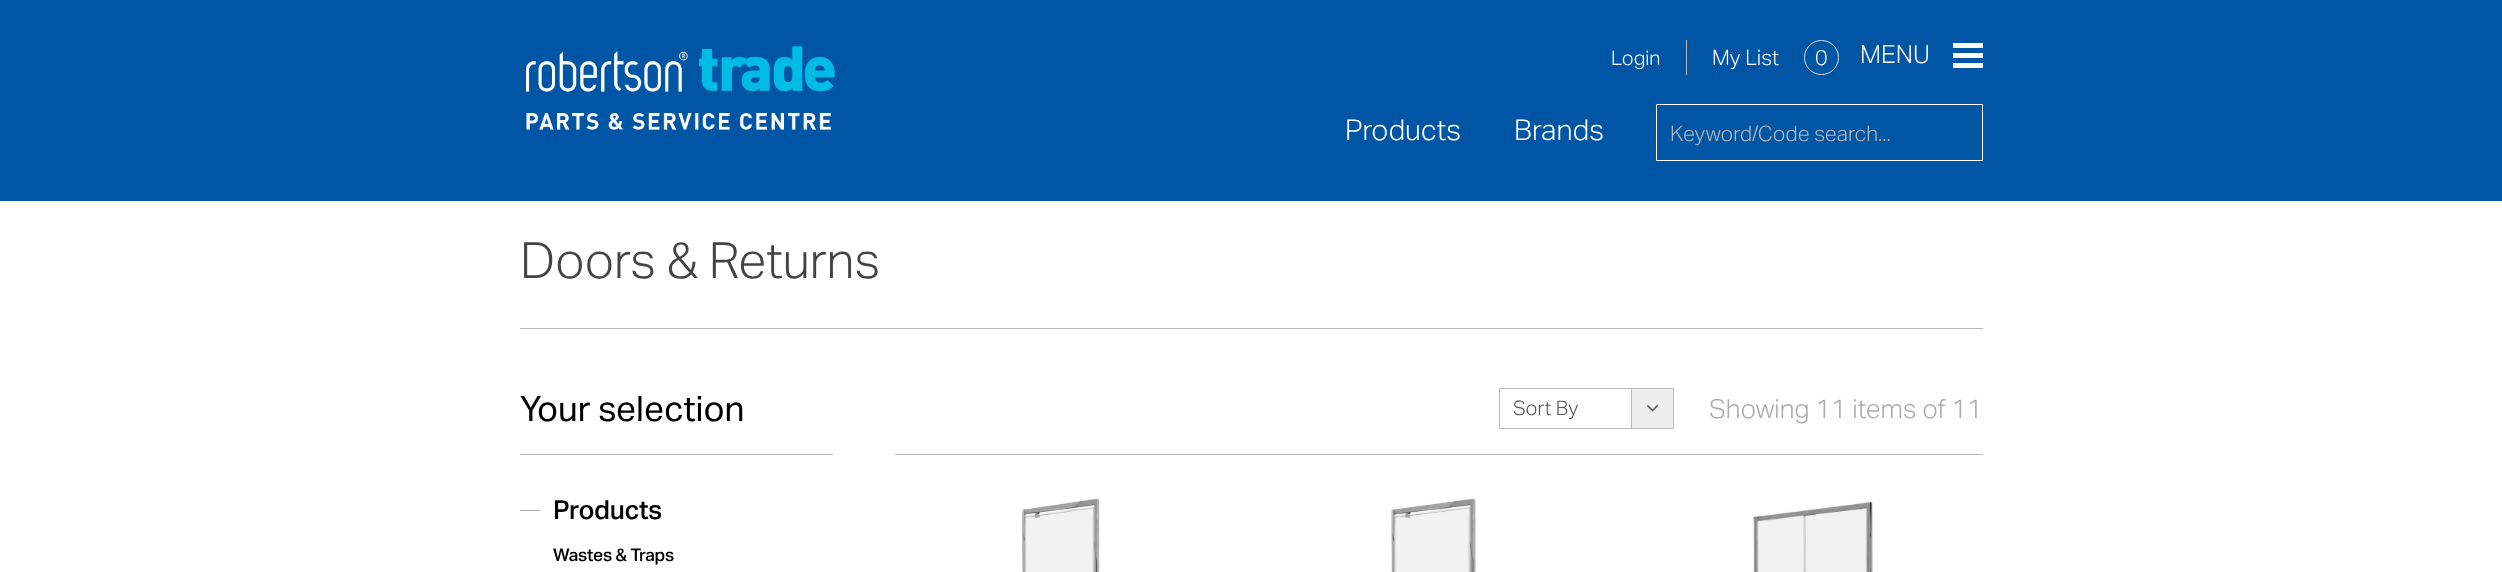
<svg xmlns="http://www.w3.org/2000/svg" width="2502" height="572" viewBox="0 0 2502 572">
  <rect width="100%" height="100%" fill="#fff"/>
  <path d="M0 0h2502v201H0z" fill="#0155a5"/>
  <image x="526" y="46" width="309" height="84" href="img/1.png"/>
  <path d="M1686 40h1v35H1686z" fill="#b8b8b8"/>
  <circle cx="1821.5" cy="57.5" r="17" fill="none" stroke="#ddd"/>
  <path d="M1953 43h30v5H1953z" fill="#fff"/>
  <path d="M1953 53h30v5H1953z" fill="#fff"/>
  <path d="M1953 63h30v5H1953z" fill="#fff"/>
  <path d="M1656.5 104.5h326v56H1656.5z" fill="none" stroke="#fff"/>
  <path d="M520 328h1463v1H520z" fill="#b8b8b8"/>
  <path d="M520 454h313v1H520z" fill="#b8b8b8"/>
  <path d="M520 510h20v1H520z" fill="#aaa"/>
  <path d="M895 454h1088v1H895z" fill="#b8b8b8"/>
  <path d="M1499.5 388.5h174v40H1499.5z" fill="none" stroke="#b8b8b8"/>
  <path d="M1632 389h41v39H1632z" fill="#eee"/>
  <path d="M1631 389h1v39H1631z" fill="#b8b8b8"/>
  <image x="1647" y="405" width="11" height="7" href="img/2.png"/>
  <image x="1022" y="498" width="78" height="74" href="img/3.png"/>
  <image x="1391" y="498" width="85" height="74" href="img/4.png"/>
  <image x="1753" y="501" width="120" height="71" href="img/5.png"/>
  <text x="1611" y="65" font-family="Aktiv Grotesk" font-size="20" font-weight="300" fill="#fff">Login</text>
  <g font-family="Aktiv Grotesk" font-size="21.25" font-weight="300" fill="#fff">
    <text x="1712" y="65">My List</text>
    <text x="1815" y="65">0</text>
  </g>
  <text x="1860" y="63" font-family="Aktiv Grotesk" font-size="25" font-weight="300" fill="#fff">MENU</text>
  <g font-family="Aktiv Grotesk" font-size="28.75" font-weight="300" fill="#fff">
    <text x="1345" y="140">Products</text>
    <text x="1514" y="140">Brands</text>
  </g>
  <text x="1670" y="141" font-family="Aktiv Grotesk" font-size="21.25" font-weight="300" fill="#b8b8b8">Keyword/Code search...</text>
  <text x="520" y="278" font-family="Aktiv Grotesk" font-size="50" font-weight="300" letter-spacing="-0.1" fill="#444">Doors &amp; Returns</text>
  <text x="520" y="421" font-family="Aktiv Grotesk" font-size="35" fill="#000">Your selection</text>
  <text x="553" y="519" font-family="Aktiv Grotesk" font-size="26.25" font-weight="500" letter-spacing="-0.25" fill="#000">Products</text>
  <text x="553" y="561" font-family="Aktiv Grotesk" font-size="17.5" font-weight="500" letter-spacing="-0.25" fill="#000">Wastes &amp; Traps</text>
  <text x="1513" y="415" font-family="Aktiv Grotesk" font-size="20" font-weight="300" fill="#555">Sort By</text>
  <text x="1709" y="418" font-family="Aktiv Grotesk" font-size="26.25" font-weight="300" fill="#aaa">Showing 11 items of 11</text>
</svg>
